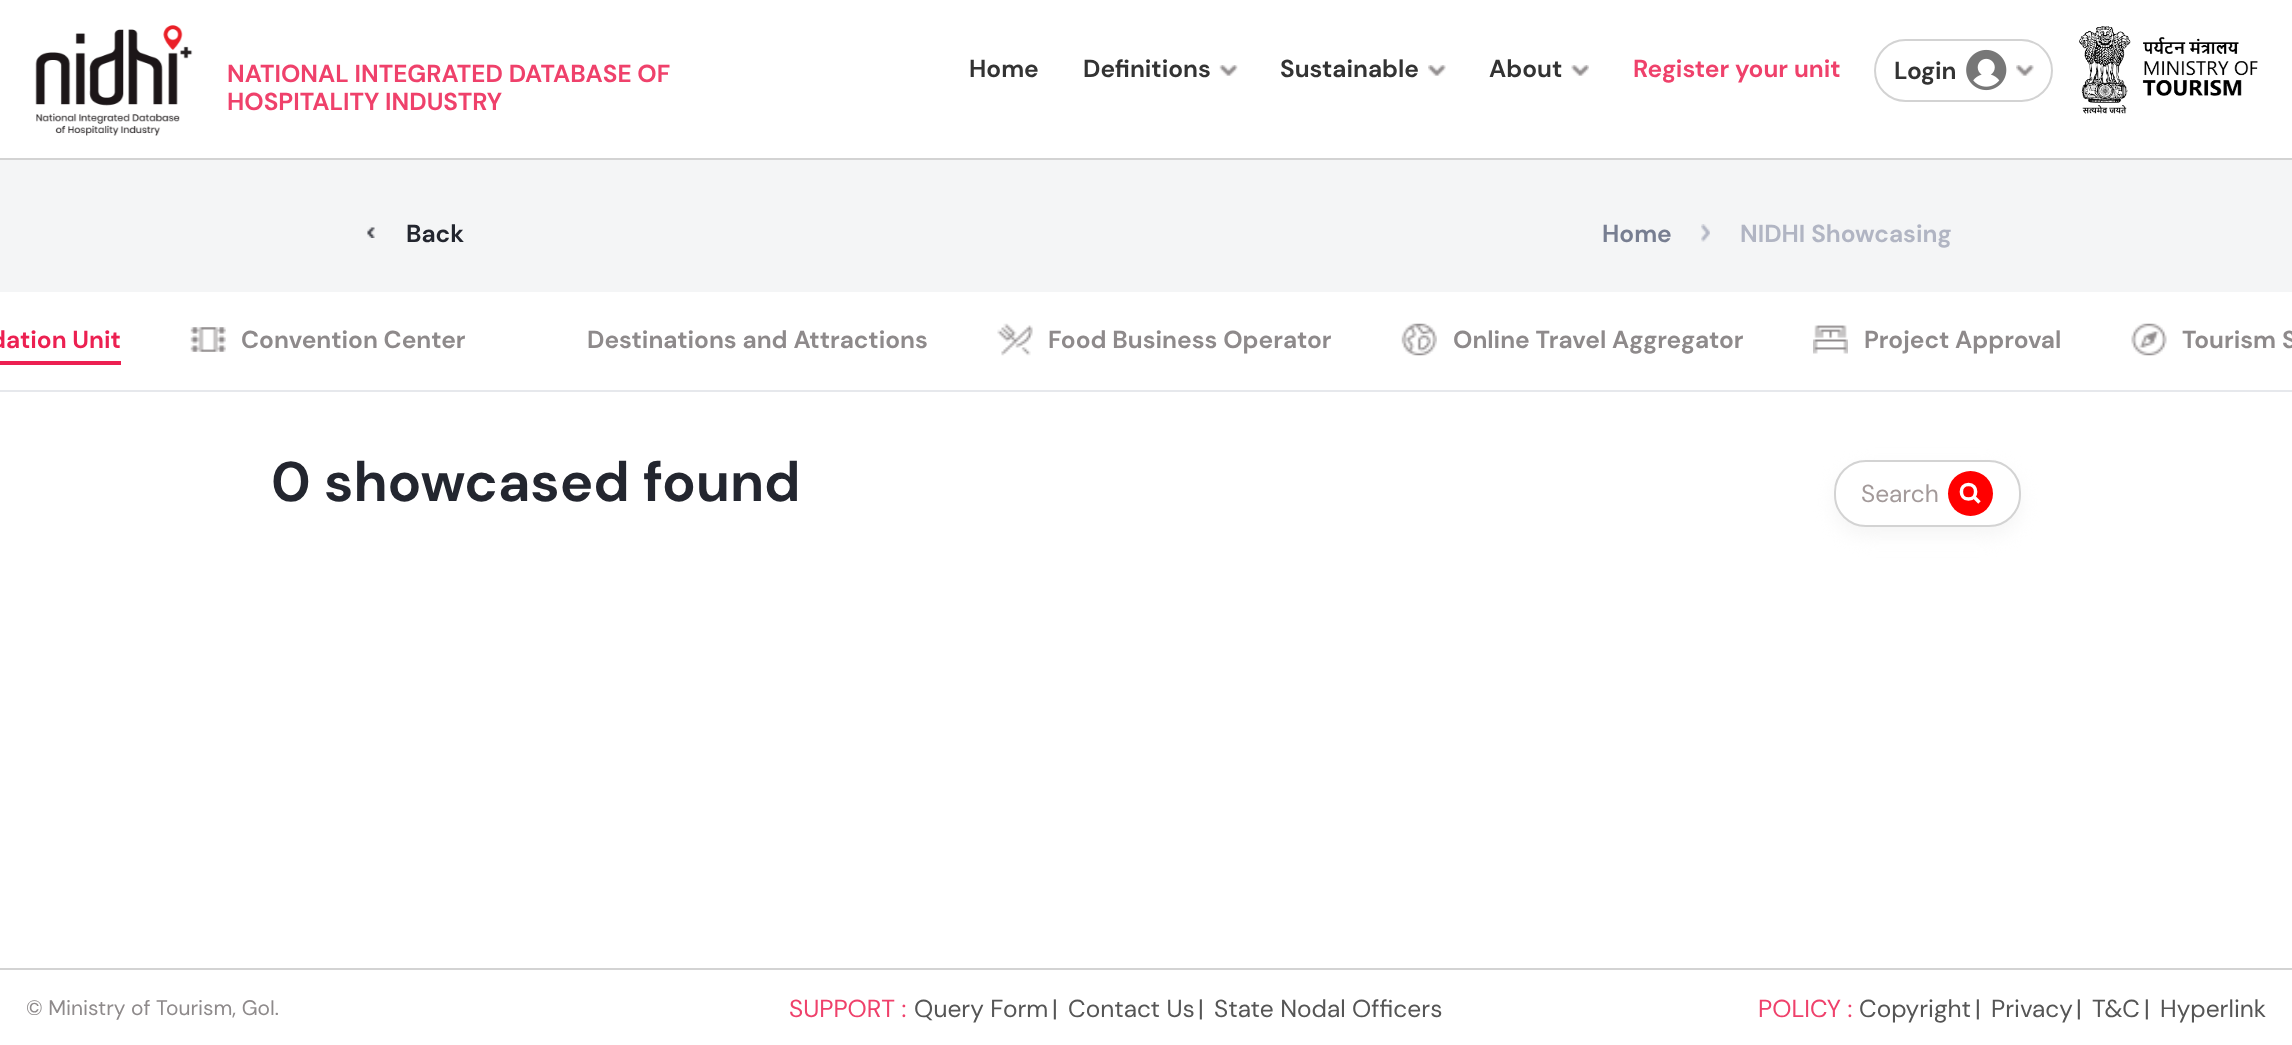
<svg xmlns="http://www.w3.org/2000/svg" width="2292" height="1045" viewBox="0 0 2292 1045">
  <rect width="100%" height="100%" fill="#fff"/>
  <path d="M0 158h2292v2H0z" fill="#d3d3d3"/>
  <image x="35" y="25" width="158" height="111" href="img/1.png"/>
  <image x="1219" y="65" width="19" height="11" href="img/2.png"/>
  <image x="1428" y="65" width="18" height="11" href="img/3.png"/>
  <image x="1571" y="65" width="18" height="11" href="img/4.png"/>
  <rect x="1875" y="40" width="177" height="61" rx="30.5" fill="none" stroke="#d3d3d3" stroke-width="2"/>
  <image x="1966" y="49" width="41" height="42" href="img/5.png"/>
  <image x="2016" y="65" width="18" height="11" href="img/3.png"/>
  <image x="2079" y="26" width="179" height="88" href="img/6.png"/>
  <path d="M0 160h2292v132H0z" fill="#f4f5f6"/>
  <image x="367" y="227" width="8" height="11" href="img/7.png"/>
  <image x="1701" y="224" width="9" height="18" href="img/8.png"/>
  <path d="M0 390h2292v2H0z" fill="#e6e8ec"/>
  <path d="M0 361h121v4H0z" fill="#ec2051"/>
  <image x="190" y="327" width="36" height="25" href="img/9.png"/>
  <image x="997" y="323" width="36" height="33" href="img/10.png"/>
  <image x="1401" y="323" width="36" height="33" href="img/11.png"/>
  <image x="1813" y="325" width="35" height="29" href="img/12.png"/>
  <image x="2131" y="323" width="36" height="33" href="img/13.png"/>
  <rect x="1834" y="469" width="187" height="67" rx="32" fill="#f5f5f5" filter="blur(9px)"/>
  <rect x="1835" y="461" width="185" height="65" rx="31" fill="#fff" stroke="#d3d3d3" stroke-width="2"/>
  <circle cx="1970.5" cy="493.5" r="22.5" fill="#f00"/>
  <path d="M1968.5 499C1978 499 1978 484.5 1968.5 484.5C1959 484.5 1959 499 1968.5 499ZM1974 497L1979.5 502.5" fill="none" stroke="#fff" stroke-width="3.5"/>
  <path d="M0 968h2292v2H0z" fill="#d3d3d3"/>
  <g font-family="DM Sans" font-size="24.5" font-weight="bold" fill="#ef416b">
    <text x="227" y="82">NATIONAL INTEGRATED DATABASE OF</text>
    <text x="227" y="110">HOSPITALITY INDUSTRY</text>
  </g>
  <g font-family="DM Sans" font-size="24.5" font-weight="bold" fill="#333">
    <text x="969" y="77">Home</text>
    <text x="1083" y="77">Definitions</text>
    <text x="1280" y="77">Sustainable</text>
    <text x="1489" y="77">About</text>
  </g>
  <text x="1633" y="77" font-family="DM Sans" font-size="24.5" font-weight="bold" fill="#ef416b">Register your unit</text>
  <text x="1894" y="79" font-family="DM Sans" font-size="24.5" font-weight="bold" fill="#333">Login</text>
  <text x="406" y="242" font-family="DM Sans" font-size="24.5" font-weight="bold" fill="#23262f">Back</text>
  <text x="1602" y="242" font-family="DM Sans" font-size="24.5" font-weight="bold" fill="#777e91">Home</text>
  <text x="1740" y="242" font-family="DM Sans" font-size="24.5" font-weight="bold" fill="#b1b5c3">NIDHI Showcasing</text>
  <text x="-10" y="348" font-family="DM Sans" font-size="24.5" font-weight="bold" fill="#ec2051">dation Unit</text>
  <g font-family="DM Sans" font-size="24.5" font-weight="bold" fill="#8e8a8b">
    <text x="241" y="348">Convention Center</text>
    <text x="587" y="348">Destinations and Attractions</text>
    <text x="1048" y="348">Food Business Operator</text>
    <text x="1453" y="348">Online Travel Aggregator</text>
    <text x="1864" y="348">Project Approval</text>
    <text x="2182" y="348">Tourism S</text>
  </g>
  <text x="271" y="501" font-family="DM Sans" font-size="56" font-weight="bold" fill="#23262f">0 showcased found</text>
  <text x="1861" y="502" font-family="DM Sans" font-size="24.5" fill="#a39a9a">Search</text>
  <text x="26" y="1015" font-family="DM Sans" font-size="21" fill="#8e8a8b">© Ministry of Tourism, GoI.</text>
  <text x="789" y="1017" font-family="DM Sans" font-size="24.5" fill="#ef416b">SUPPORT :</text>
  <g font-family="DM Sans" font-size="24.5" fill="#555">
    <text x="914" y="1017">Query Form</text>
    <text x="1052" y="1017">|</text>
    <text x="1068" y="1017">Contact Us</text>
    <text x="1198" y="1017">|</text>
    <text x="1214" y="1017">State Nodal Officers</text>
  </g>
  <text x="1758" y="1017" font-family="DM Sans" font-size="24.5" fill="#ef416b">POLICY :</text>
  <g font-family="DM Sans" font-size="24.5" fill="#555">
    <text x="1859" y="1017">Copyright</text>
    <text x="1975" y="1017">|</text>
    <text x="1991" y="1017">Privacy</text>
    <text x="2076" y="1017">|</text>
    <text x="2092" y="1017">T&amp;C</text>
    <text x="2144" y="1017">|</text>
    <text x="2160" y="1017">Hyperlink</text>
  </g>
</svg>
